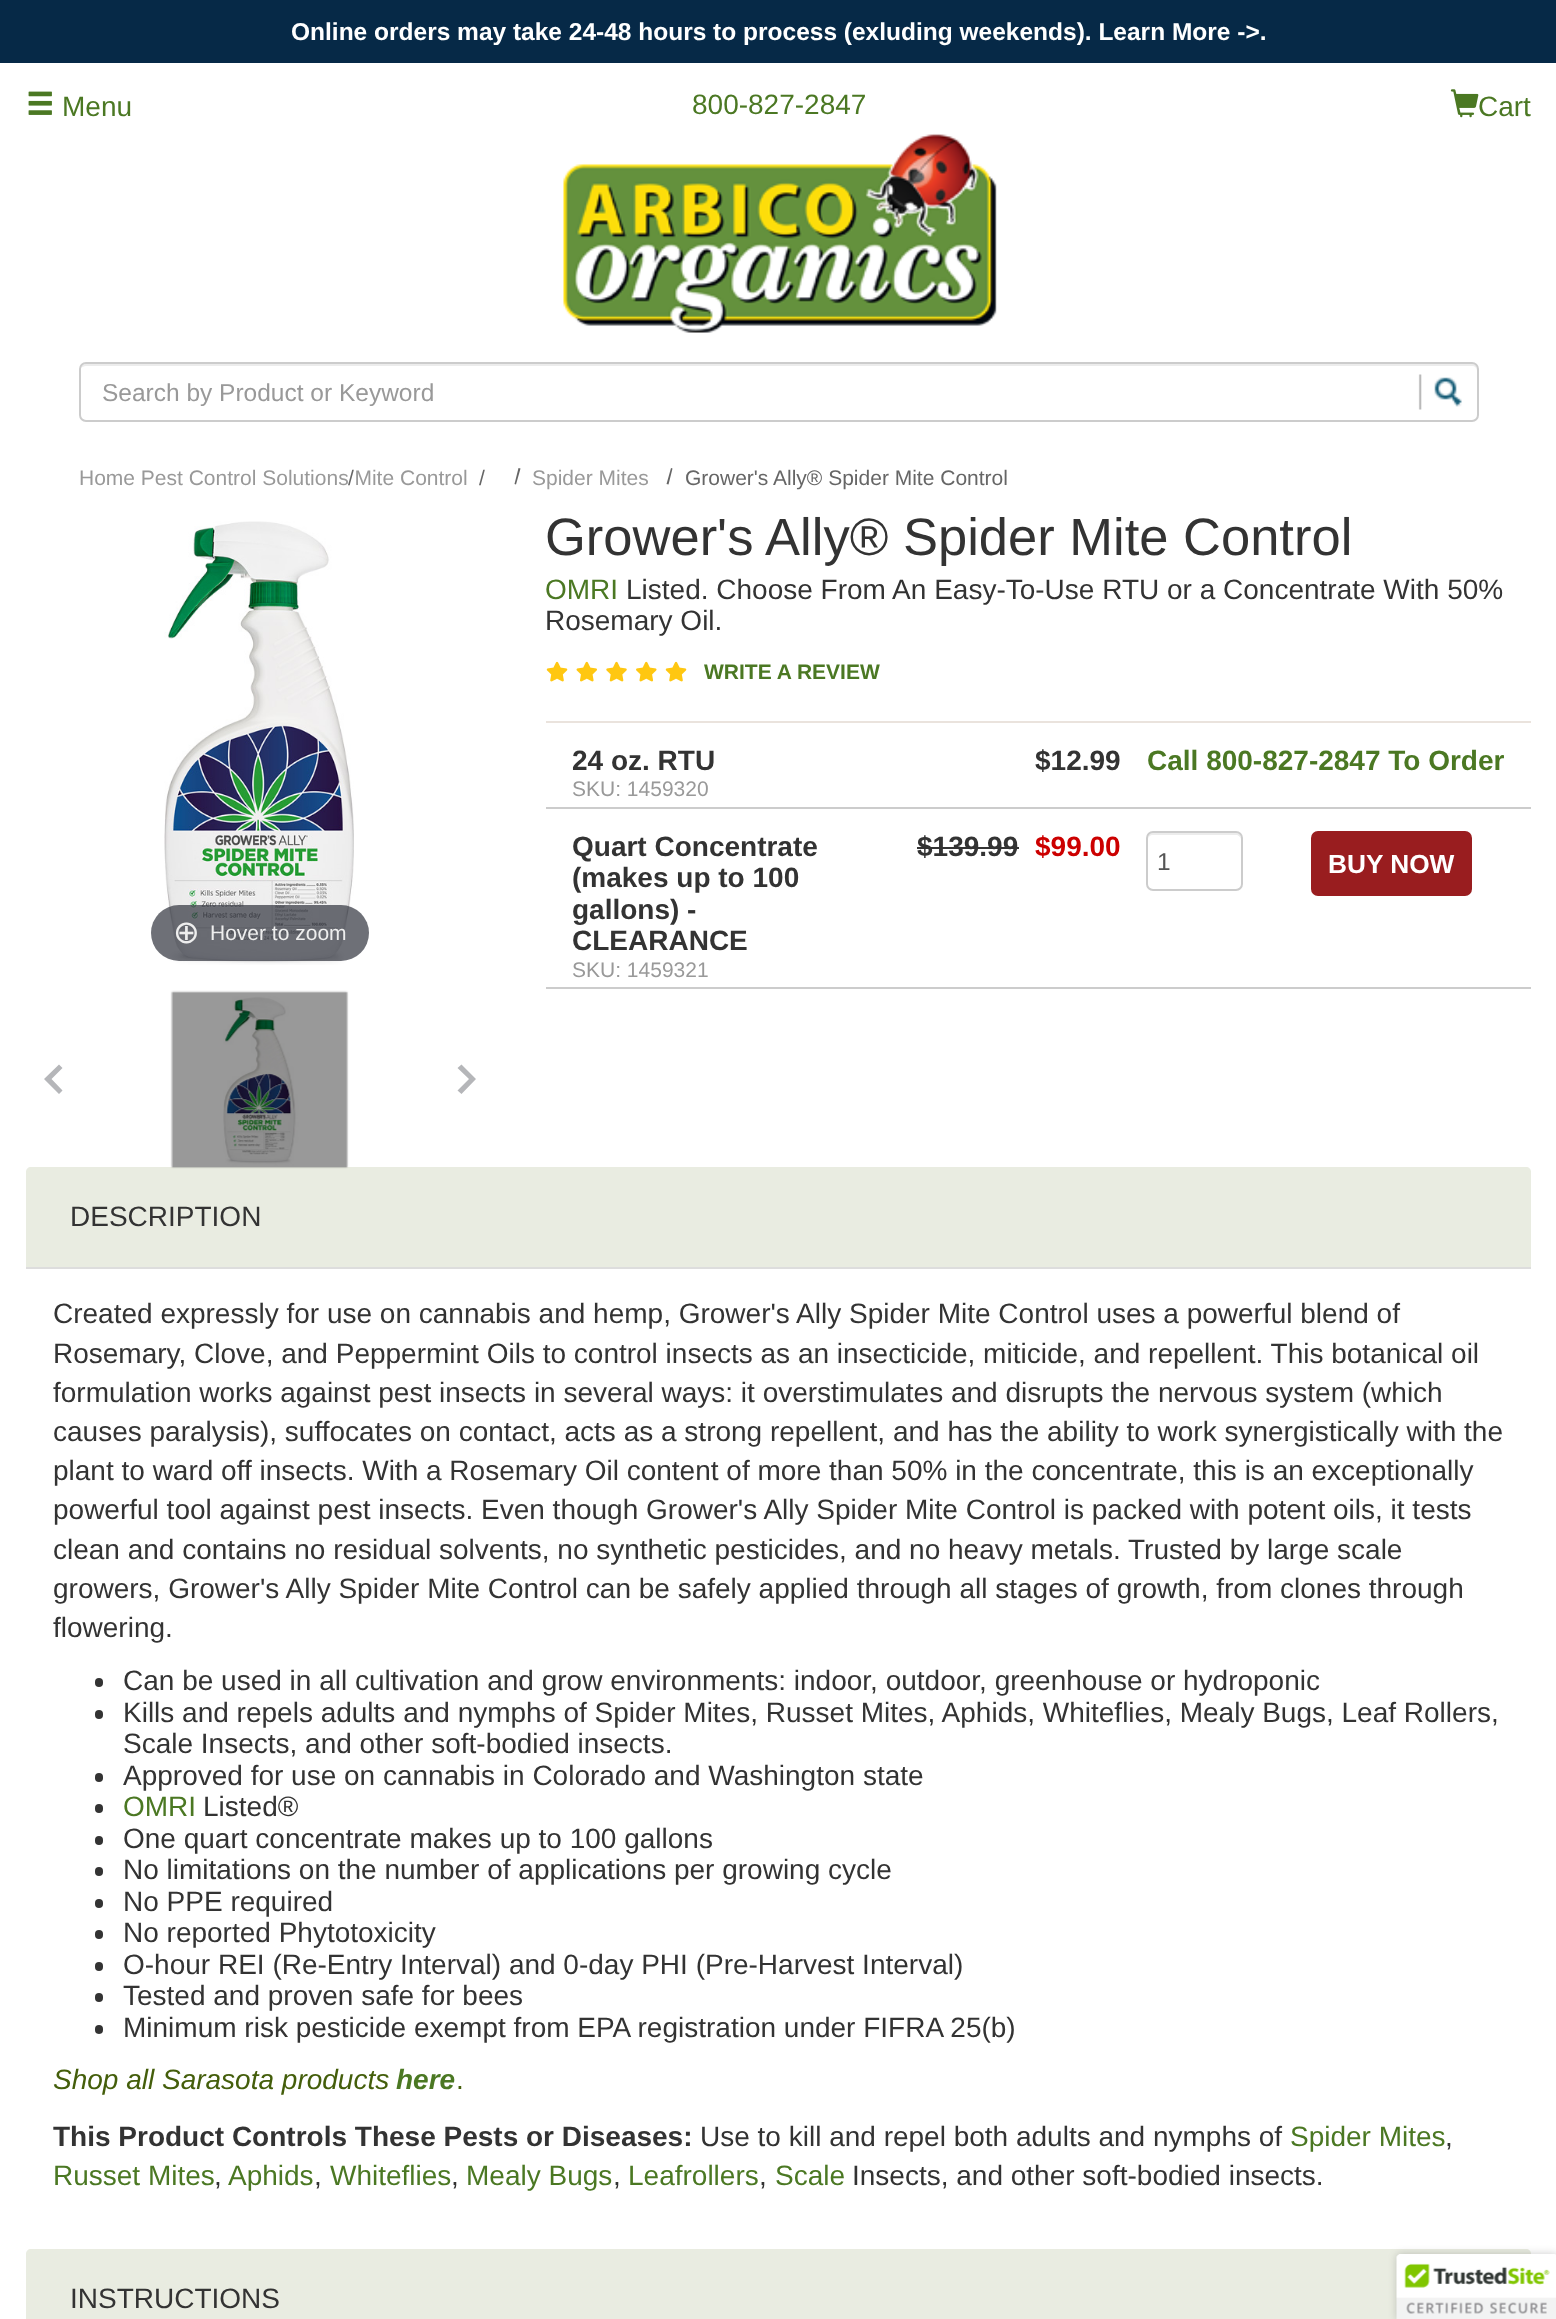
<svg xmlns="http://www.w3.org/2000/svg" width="1556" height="2319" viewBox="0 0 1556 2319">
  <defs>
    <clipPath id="clip1"><path d="M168 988H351V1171H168ZM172 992H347V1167H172Z" clip-rule="evenodd"/></clipPath>
  </defs>
  <rect width="100%" height="100%" fill="#fff"/>
  <path d="M0 0h1556v63H0z" fill="#062947"/>
  <image x="28" y="91" width="24" height="24" href="img/1.png"/>
  <image x="1450" y="89" width="29" height="29" href="img/2.png"/>
  <image x="563" y="133" width="434" height="200" href="img/3.png"/>
  <path d="M86 366H1472C1475 366 1477 368 1477 371V369C1477 366 1475 364 1472 364H86C84 364 81 366 81 368C82 367 84 366 86 366Z" fill="#ececec"/>
  <rect x="80" y="363" width="1398" height="58" rx="6" fill="none" stroke="#ccc" stroke-width="2"/>
  <image x="1418" y="374" width="44" height="36" href="img/4.png"/>
  <path d="M518.5 468L520.5 468.5L516 484.5L514.5 484Z" fill="#666"/>
  <path d="M671 468L672.5 468.5L668.5 484.5L666.5 484Z" fill="#666"/>
  <image x="164" y="521" width="190" height="444" href="img/5.png"/>
  <rect x="151" y="905" width="218" height="56" rx="28" fill="#31333db3"/>
  <path d="M44 1079L59 1064.5L62.5 1068L51.5 1079ZM59 1094L44 1079H51.5L62.5 1090.5Z" fill="#b5b6b9"/>
  <path d="M31 1167H1526C1529 1167 1531 1169 1531 1172V1267H26V1172C26 1169 28 1167 31 1167Z" fill="#e9ece1"/>
  <g clip-path="url(#clip1)">
    <path d="M172 992h175v175H172z" fill="#0000004d" filter="blur(1px)"/>
  </g>
  <image x="171" y="992" width="177" height="176" href="img/6.png"/>
  <path d="M476 1079L461.5 1094L457.5 1090.5L469 1079ZM461.5 1064.5L476 1079H469L457.5 1068Z" fill="#b5b6b9"/>
  <image x="546" y="661" width="22" height="21" href="img/7.png"/>
  <image x="576" y="661" width="21" height="21" href="img/8.png"/>
  <image x="606" y="661" width="21" height="21" href="img/9.png"/>
  <image x="636" y="661" width="21" height="21" href="img/10.png"/>
  <image x="665" y="661" width="22" height="21" href="img/7.png"/>
  <path d="M546 721h985v2H546z" fill="#eae3dd"/>
  <path d="M546 807h985v2H546z" fill="#ccc"/>
  <path d="M546 987h985v2H546z" fill="#ccc"/>
  <path d="M917 847h102v2H917z" fill="#333"/>
  <path d="M1153 835H1236C1238 835 1241 837 1241 840C1241 829 1231 833 1222 833H1167C1158 833 1148 829 1148 840C1148 837 1150 835 1153 835Z" fill="#ececec"/>
  <rect x="1147" y="832" width="95" height="58" rx="6" fill="none" stroke="#ccc" stroke-width="2"/>
  <rect x="1311" y="831" width="161" height="65" rx="7" fill="#991d1f"/>
  <path d="M26 1267h1505v2H26z" fill="#ddd"/>
  <rect x="95" y="1678" width="8" height="9" rx="4" fill="#333"/>
  <rect x="95" y="1710" width="8" height="9" rx="4" fill="#333"/>
  <rect x="95" y="1773" width="8" height="9" rx="4" fill="#333"/>
  <rect x="95" y="1804" width="8" height="9" rx="4" fill="#333"/>
  <rect x="95" y="1836" width="8" height="9" rx="4" fill="#333"/>
  <rect x="95" y="1867" width="8" height="9" rx="4" fill="#333"/>
  <rect x="95" y="1899" width="8" height="9" rx="4" fill="#333"/>
  <rect x="95" y="1930" width="8" height="9" rx="4" fill="#333"/>
  <rect x="95" y="1962" width="8" height="9" rx="4" fill="#333"/>
  <rect x="95" y="1993" width="8" height="9" rx="4" fill="#333"/>
  <rect x="95" y="2025" width="8" height="9" rx="4" fill="#333"/>
  <path d="M31 2249H1526C1529 2249 1531 2251 1531 2254V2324H26V2254C26 2251 28 2249 31 2249Z" fill="#e9ece1"/>
  <rect x="1397" y="2254" width="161" height="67" rx="4" fill="#00000033" filter="blur(4.5px)"/>
  <path d="M1401 2254H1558V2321H1397V2258C1397 2256 1399 2254 1401 2254Z" fill="#fff"/>
  <image x="1396" y="2254" width="160" height="65" href="img/11.png"/>
  <text x="291" y="40" font-family="Liberation Sans" font-size="24.5" font-weight="bold" fill="#fff">Online orders may take 24-48 hours to process (exluding weekends). Learn More -&gt;.</text>
  <g font-family="Liberation Sans" font-size="28" fill="#4b7823">
    <text x="62" y="116">Menu</text>
    <text x="692" y="114">800-827-2847</text>
    <text x="1478" y="116">Cart</text>
  </g>
  <text x="102" y="401" font-family="Liberation Sans" font-size="24.5" fill="#999">Search by Product or Keyword</text>
  <text x="79" y="485" font-family="Liberation Sans" font-size="21" fill="#999">Home Pest Control Solutions Mite Control</text>
  <g font-family="Liberation Sans" font-size="21" fill="#666">
    <text x="348" y="485">/</text>
    <text x="479" y="485">/</text>
  </g>
  <text x="532" y="485" font-family="Liberation Sans" font-size="21" fill="#999">Spider Mites</text>
  <text x="685" y="485" font-family="Liberation Sans" font-size="21" fill="#666">Grower's Ally® Spider Mite Control</text>
  <text x="173" y="943" font-family="DejaVu Sans" font-size="32" fill="#eee">⊕</text>
  <text x="210" y="940" font-family="Liberation Sans" font-size="21" fill="#eee">Hover to zoom</text>
  <text x="545" y="555" font-family="Liberation Sans" font-size="52.5" fill="#333">Grower's Ally® Spider Mite Control</text>
  <text x="545" y="599" font-family="Liberation Sans" font-size="28" fill="#4b7823">OMRI</text>
  <g font-family="Liberation Sans" font-size="28" fill="#333">
    <text x="626" y="599">Listed. Choose From An Easy-To-Use RTU or a Concentrate With 50%</text>
    <text x="545" y="630">Rosemary Oil.</text>
  </g>
  <text x="704" y="679" font-family="Liberation Sans" font-size="21" font-weight="bold" fill="#4b7823">WRITE A REVIEW</text>
  <text x="572" y="770" font-family="Liberation Sans" font-size="28" font-weight="bold" fill="#333">24 oz. RTU</text>
  <text x="572" y="796" font-family="Liberation Sans" font-size="21" fill="#999">SKU: 1459320</text>
  <text x="1035" y="770" font-family="Liberation Sans" font-size="28" font-weight="bold" fill="#333">$12.99</text>
  <text x="1147" y="770" font-family="Liberation Sans" font-size="28" font-weight="bold" fill="#4b7823">Call 800-827-2847 To Order</text>
  <g font-family="Liberation Sans" font-size="28" font-weight="bold" fill="#333">
    <text x="572" y="856">Quart Concentrate</text>
    <text x="572" y="887">(makes up to 100</text>
    <text x="572" y="919">gallons) -</text>
    <text x="572" y="950">CLEARANCE</text>
  </g>
  <text x="572" y="977" font-family="Liberation Sans" font-size="21" fill="#999">SKU: 1459321</text>
  <text x="917" y="856" font-family="Liberation Sans" font-size="28" font-weight="bold" fill="#333">$139.99</text>
  <text x="1035" y="856" font-family="Liberation Sans" font-size="28" font-weight="bold" fill="#c00">$99.00</text>
  <text x="1157" y="870" font-family="Liberation Sans" font-size="24.5" fill="#555">1</text>
  <text x="1328" y="873" font-family="Liberation Sans" font-size="26.25" font-weight="bold" fill="#fff">BUY NOW</text>
  <g font-family="Liberation Sans" font-size="28" fill="#333">
    <text x="70" y="1226">DESCRIPTION</text>
    <text x="53" y="1323">Created expressly for use on cannabis and hemp, Grower's Ally Spider Mite Control uses a powerful blend of</text>
    <text x="53" y="1363">Rosemary, Clove, and Peppermint Oils to control insects as an insecticide, miticide, and repellent. This botanical oil</text>
    <text x="53" y="1402">formulation works against pest insects in several ways: it overstimulates and disrupts the nervous system (which</text>
    <text x="53" y="1441">causes paralysis), suffocates on contact, acts as a strong repellent, and has the ability to work synergistically with the</text>
    <text x="53" y="1480">plant to ward off insects. With a Rosemary Oil content of more than 50% in the concentrate, this is an exceptionally</text>
    <text x="53" y="1519">powerful tool against pest insects. Even though Grower's Ally Spider Mite Control is packed with potent oils, it tests</text>
    <text x="53" y="1559">clean and contains no residual solvents, no synthetic pesticides, and no heavy metals. Trusted by large scale</text>
    <text x="53" y="1598">growers, Grower's Ally Spider Mite Control can be safely applied through all stages of growth, from clones through</text>
    <text x="53" y="1637">flowering.</text>
    <text x="123" y="1690">Can be used in all cultivation and grow environments: indoor, outdoor, greenhouse or hydroponic</text>
    <text x="123" y="1722">Kills and repels adults and nymphs of Spider Mites, Russet Mites, Aphids, Whiteflies, Mealy Bugs, Leaf Rollers,</text>
    <text x="123" y="1753">Scale Insects, and other soft-bodied insects.</text>
    <text x="123" y="1785">Approved for use on cannabis in Colorado and Washington state</text>
  </g>
  <text x="123" y="1816" font-family="Liberation Sans" font-size="28" fill="#4b7823">OMRI</text>
  <g font-family="Liberation Sans" font-size="28" fill="#333">
    <text x="203" y="1816">Listed®</text>
    <text x="123" y="1848">One quart concentrate makes up to 100 gallons</text>
    <text x="123" y="1879">No limitations on the number of applications per growing cycle</text>
    <text x="123" y="1911">No PPE required</text>
    <text x="123" y="1942">No reported Phytotoxicity</text>
    <text x="123" y="1974">O-hour REI (Re-Entry Interval) and 0-day PHI (Pre-Harvest Interval)</text>
    <text x="123" y="2005">Tested and proven safe for bees</text>
    <text x="123" y="2037">Minimum risk pesticide exempt from EPA registration under FIFRA 25(b)</text>
  </g>
  <text x="53" y="2089" font-family="Liberation Sans" font-size="28" font-style="italic" fill="#445e0b">Shop all Sarasota products</text>
  <text x="396" y="2089" font-family="Liberation Sans" font-size="28" font-weight="bold" font-style="italic" fill="#4b7823">here</text>
  <text x="456" y="2089" font-family="Liberation Sans" font-size="28" fill="#445e0b">.</text>
  <text x="53" y="2146" font-family="Liberation Sans" font-size="28" font-weight="bold" fill="#333">This Product Controls These Pests or Diseases:</text>
  <text x="700" y="2146" font-family="Liberation Sans" font-size="28" fill="#333">Use to kill and repel both adults and nymphs of</text>
  <text x="1290" y="2146" font-family="Liberation Sans" font-size="28" fill="#4b7823">Spider Mites</text>
  <text x="1445" y="2146" font-family="Liberation Sans" font-size="28" fill="#333">,</text>
  <text x="53" y="2185" font-family="Liberation Sans" font-size="28" fill="#4b7823">Russet Mites</text>
  <text x="214" y="2185" font-family="Liberation Sans" font-size="28" fill="#333">,</text>
  <text x="228" y="2185" font-family="Liberation Sans" font-size="28" fill="#4b7823">Aphids</text>
  <text x="314" y="2185" font-family="Liberation Sans" font-size="28" fill="#333">,</text>
  <text x="330" y="2185" font-family="Liberation Sans" font-size="28" fill="#4b7823">Whiteflies</text>
  <text x="451" y="2185" font-family="Liberation Sans" font-size="28" fill="#333">,</text>
  <text x="466" y="2185" font-family="Liberation Sans" font-size="28" fill="#4b7823">Mealy Bugs</text>
  <text x="613" y="2185" font-family="Liberation Sans" font-size="28" fill="#333">,</text>
  <text x="628" y="2185" font-family="Liberation Sans" font-size="28" fill="#4b7823">Leafrollers</text>
  <text x="759" y="2185" font-family="Liberation Sans" font-size="28" fill="#333">,</text>
  <text x="775" y="2185" font-family="Liberation Sans" font-size="28" fill="#4b7823">Scale</text>
  <g font-family="Liberation Sans" font-size="28" fill="#333">
    <text x="852" y="2185">Insects, and other soft-bodied insects.</text>
    <text x="70" y="2308">INSTRUCTIONS</text>
  </g>
</svg>
